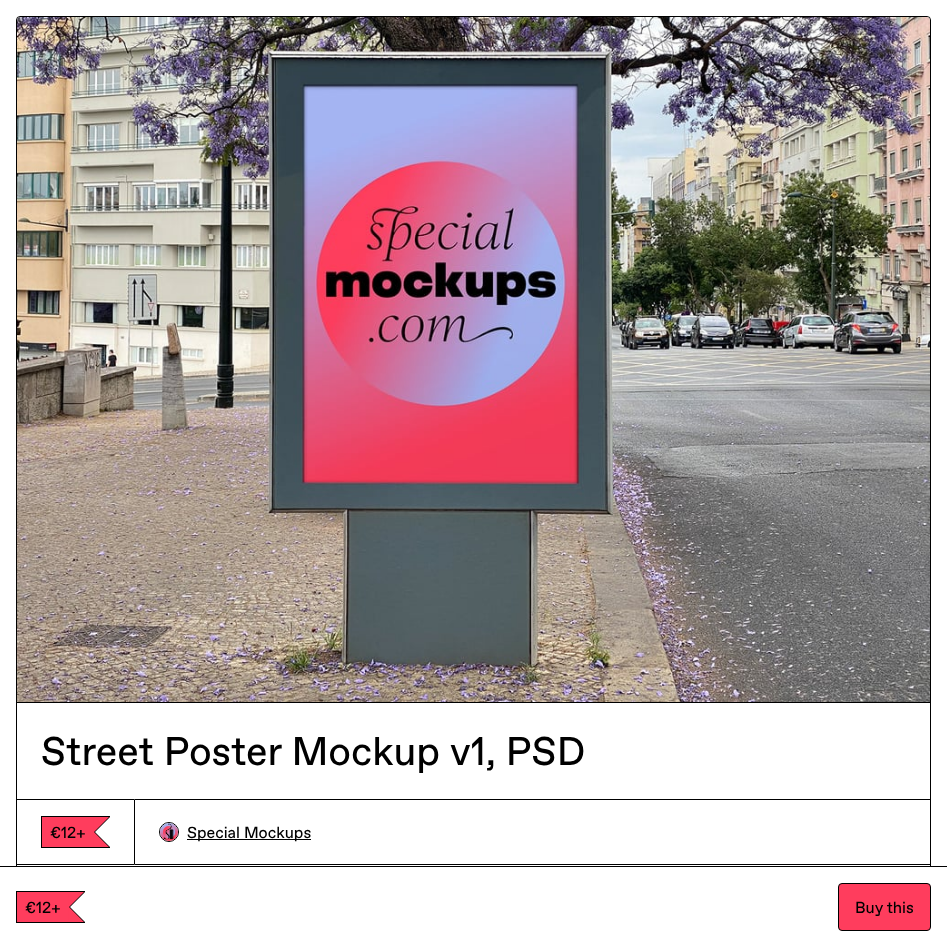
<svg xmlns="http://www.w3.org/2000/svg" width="947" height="947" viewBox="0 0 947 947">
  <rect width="100%" height="100%" fill="#fff"/>
  <rect x="16.5" y="16.5" width="914" height="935" rx="3.5" fill="none" stroke="#000"/>
  <path d="M17 702h913v1H17z" fill="#000"/>
  <image x="17" y="17" width="913" height="685" href="img/1.png"/>
  <path d="M135 799h795v1H135z" fill="#000"/>
  <path d="M16.5 799.5h118v65H16.5z" fill="none" stroke="#000"/>
  <path d="M41 816h69v1H41z" fill="#000"/>
  <path d="M41 847h69v1H41z" fill="#000"/>
  <path d="M41 816h1v32H41z" fill="#000"/>
  <path d="M42 817h52v30H42z" fill="#ff3d5d"/>
  <path d="M94 817H110L95 832ZM110 847H94L95 832Z" fill="#000"/>
  <path d="M94 831h1v2H94z" fill="#000"/>
  <path d="M93 817H109L94 832ZM109 847H93L94 832Z" fill="#ff3d5d"/>
  <circle cx="169" cy="832" r="9.5" fill="none" stroke="#000"/>
  <image x="160" y="823" width="18" height="18" href="img/2.png"/>
  <path d="M187 839h124v1H187z" fill="#000"/>
  <path d="M135 864h795v1H135z" fill="#000"/>
  <path d="M0 866h947v1H0z" fill="#000"/>
  <path d="M16 867h915v80H16z" fill="#fff"/>
  <path d="M16 891h69v1H16z" fill="#000"/>
  <path d="M16 922h69v1H16z" fill="#000"/>
  <path d="M16 891h1v32H16z" fill="#000"/>
  <path d="M17 892h52v30H17z" fill="#ff3d5d"/>
  <path d="M69 892H85L70 907ZM85 922H69L70 907Z" fill="#000"/>
  <path d="M69 906h1v2H69z" fill="#000"/>
  <path d="M68 892H84L69 907ZM84 922H68L69 907Z" fill="#ff3d5d"/>
  <rect x="838.5" y="883.5" width="92" height="47" rx="3.5" fill="#ff3d5d" stroke="#000"/>
  <text x="41" y="765" font-family="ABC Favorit" font-size="40" fill="#000">Street Poster Mockup v1, PSD</text>
  <g font-family="ABC Favorit" font-size="16" fill="#000">
    <text x="50" y="838">€12+</text>
    <text x="187" y="838">Special Mockups</text>
    <text x="25" y="913">€12+</text>
    <text x="855" y="913">Buy this</text>
  </g>
</svg>
